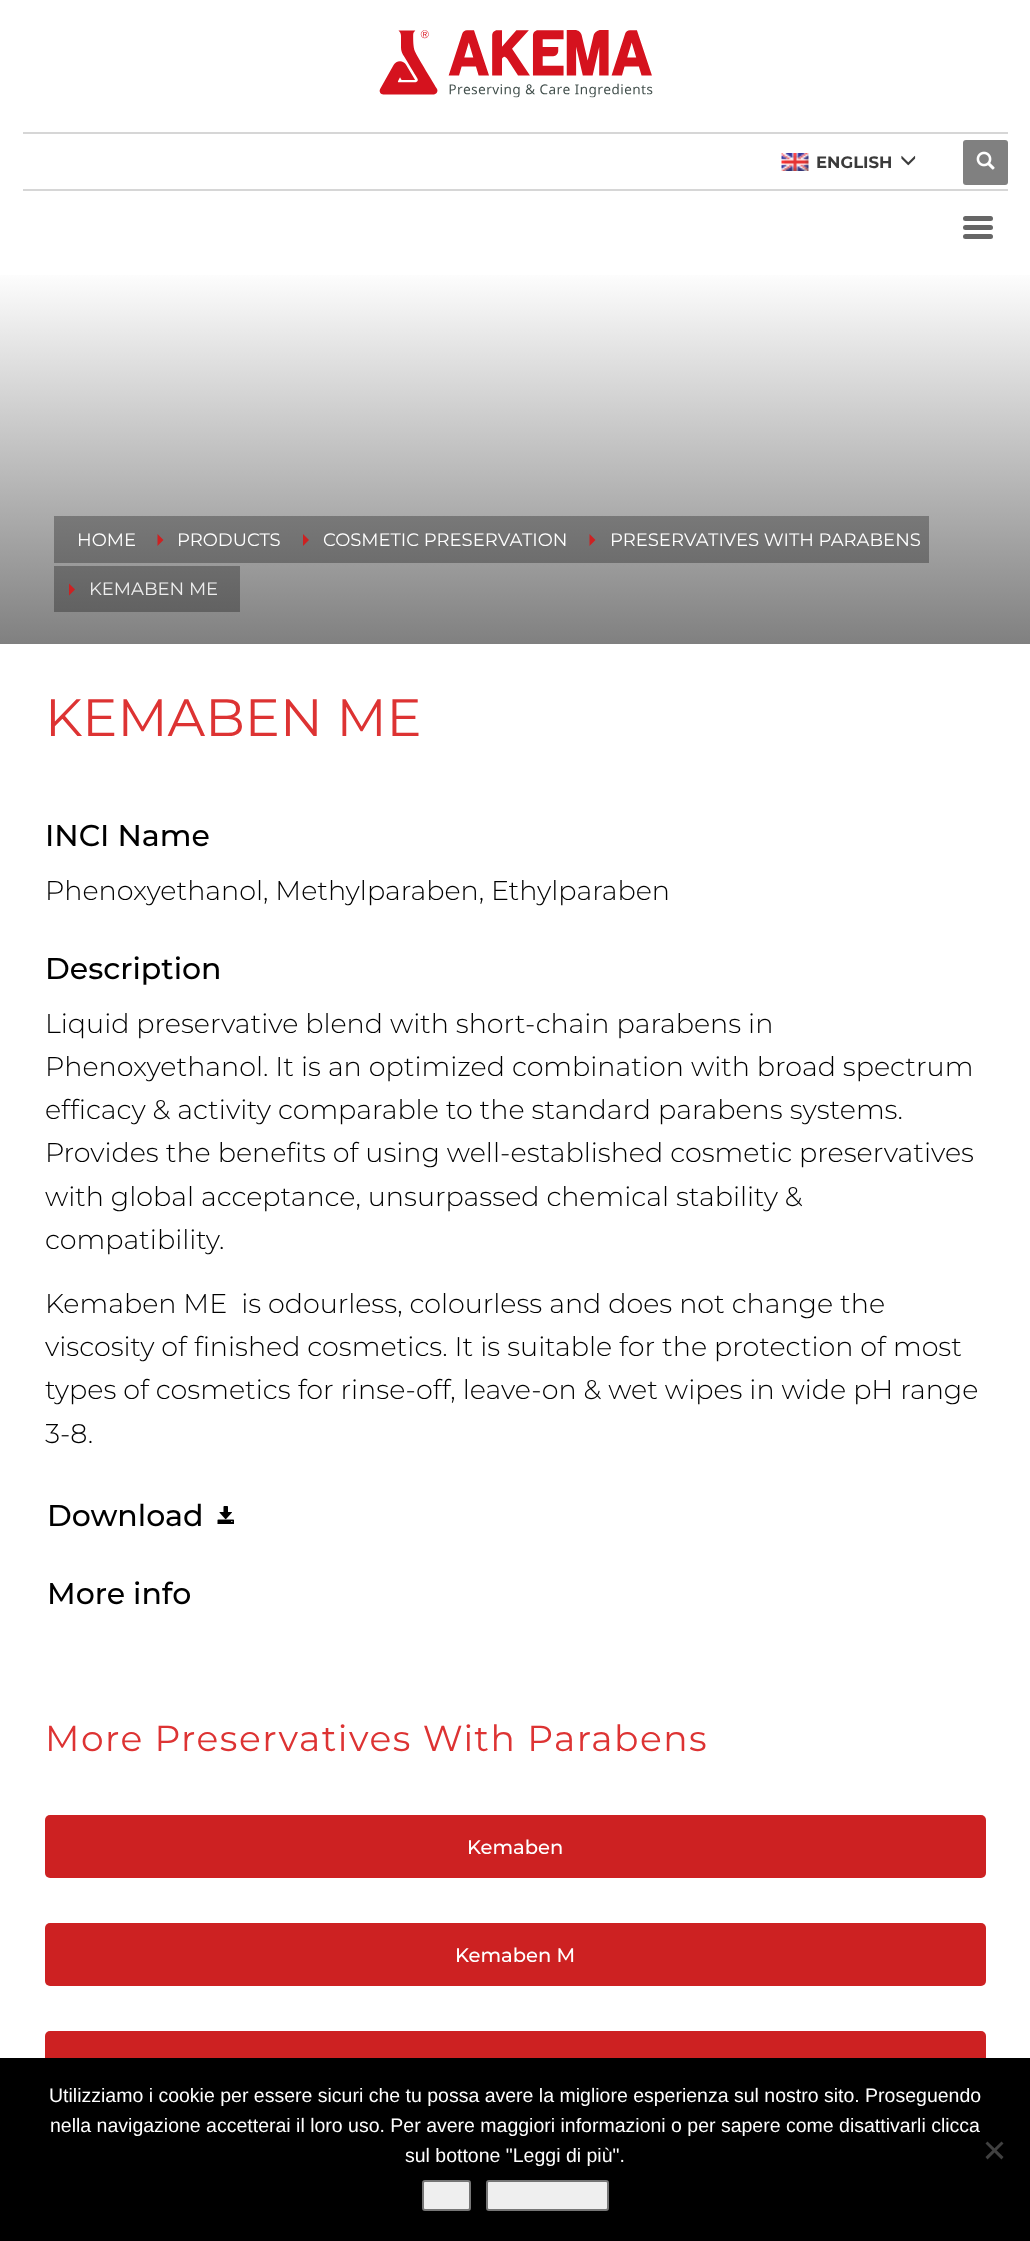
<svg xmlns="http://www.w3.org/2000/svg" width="1030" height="2241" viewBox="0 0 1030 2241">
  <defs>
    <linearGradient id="g1" gradientUnits="userSpaceOnUse" x1="515" y1="268" x2="515" y2="644"><stop offset="0" stop-color="#fff"/><stop offset="1" stop-color="#808080"/></linearGradient>
    <linearGradient id="g2" gradientUnits="userSpaceOnUse" x1="515" y1="268" x2="515" y2="644"><stop offset="0" stop-color="#b3b3b3"/><stop offset="1" stop-color="#5a5a5a"/></linearGradient>
  </defs>
  <rect width="100%" height="100%" fill="#fff"/>
  <image x="379" y="30" width="274" height="68" href="img/1.png"/>
  <path d="M23 132h985v2H23z" fill="#d6d6d6"/>
  <image x="781" y="153" width="28" height="18" href="img/2.png"/>
  <image x="901" y="155" width="15" height="11" href="img/3.png"/>
  <rect x="963" y="140" width="45" height="45" rx="3" fill="#808080"/>
  <image x="976" y="151" width="19" height="19" href="img/4.png"/>
  <path d="M23 189h985v2H23z" fill="#d6d6d6"/>
  <rect x="963" y="216" width="30" height="5" rx="2.5" fill="#666"/>
  <rect x="963" y="225" width="30" height="5" rx="2.5" fill="#666"/>
  <rect x="963" y="234" width="30" height="5" rx="2.5" fill="#666"/>
  <path d="M0 275h1030v369H0z" fill="url(#g1)"/>
  <path d="M54 566h186v46H54z" fill="url(#g2)"/>
  <path d="M575 516h354v47H575z" fill="url(#g2)"/>
  <path d="M288 516h287v47H288z" fill="url(#g2)"/>
  <path d="M143 516h145v47H143z" fill="url(#g2)"/>
  <path d="M54 516h89v47H54z" fill="url(#g2)"/>
  <path d="M157.5 546V534L163.5 540Z" fill="#cd2122"/>
  <path d="M303 546V534L309 540Z" fill="#cd2122"/>
  <path d="M589.5 546V534L595.5 540Z" fill="#cd2122"/>
  <path d="M69 595.5V583.5L75 589.5Z" fill="#cd2122"/>
  <image x="217" y="1506" width="17" height="18" href="img/5.png"/>
  <rect x="45" y="1815" width="941" height="63" rx="5" fill="#cd2122"/>
  <rect x="45" y="1923" width="941" height="63" rx="5" fill="#cd2122"/>
  <rect x="45" y="2031" width="941" height="63" rx="5" fill="#cd2122"/>
  <path d="M0 2058h1030v183H0z" fill="#000"/>
  <path d="M1001.5 2141.5L1003.5 2143.5L987.5 2159.5L985.5 2157Z" fill="#404040"/>
  <path d="M985.5 2143.5L987.5 2141.5L1003.5 2157L1001.5 2159.5Z" fill="#404040"/>
  <rect x="423" y="2181" width="47" height="29" rx="2" fill="#efefef" stroke="#767676" stroke-width="2"/>
  <rect x="487" y="2181" width="121" height="29" rx="2" fill="#efefef" stroke="#767676" stroke-width="2"/>
  <text x="816" y="168" font-family="Montserrat" font-size="16.5" font-weight="bold" fill="#3b3b3b">ENGLISH</text>
  <g font-family="Montserrat" font-size="18" fill="#fff">
    <text x="77" y="546">HOME</text>
    <text x="177" y="546">PRODUCTS</text>
    <text x="323" y="546">COSMETIC PRESERVATION</text>
    <text x="610" y="546">PRESERVATIVES WITH PARABENS</text>
  </g>
  <text x="89" y="595" font-family="Montserrat" font-size="18" fill="#eee">KEMABEN ME</text>
  <text x="45" y="736" font-family="Montserrat" font-size="52.5" fill="#d33">KEMABEN ME</text>
  <text x="45" y="846" font-family="Montserrat" font-size="30" font-weight="500" fill="#000">INCI Name</text>
  <text x="45" y="900" font-family="Montserrat" font-size="27" font-weight="300" fill="#000">Phenoxyethanol, Methylparaben, Ethylparaben</text>
  <text x="45" y="979" font-family="Montserrat" font-size="30" font-weight="500" fill="#000">Description</text>
  <g font-family="Montserrat" font-size="27" font-weight="300" fill="#000">
    <text x="45" y="1033">Liquid preservative blend with short-chain parabens in</text>
    <text x="45" y="1076">Phenoxyethanol. It is an optimized combination with broad spectrum</text>
    <text x="45" y="1119">efficacy &amp; activity comparable to the standard parabens systems.</text>
    <text x="45" y="1162">Provides the benefits of using well-established cosmetic preservatives</text>
    <text x="45" y="1206">with global acceptance, unsurpassed chemical stability &amp;</text>
    <text x="45" y="1249">compatibility.</text>
    <text x="45" y="1313" xml:space="preserve">Kemaben ME  is odourless, colourless and does not change the</text>
    <text x="45" y="1356">viscosity of finished cosmetics. It is suitable for the protection of most</text>
    <text x="45" y="1399">types of cosmetics for rinse-off, leave-on &amp; wet wipes in wide pH range</text>
    <text x="45" y="1443">3-8.</text>
  </g>
  <g font-family="Montserrat" font-size="30" font-weight="500" fill="#000">
    <text x="47" y="1526">Download</text>
    <text x="47" y="1604">More info</text>
  </g>
  <text x="45" y="1751" font-family="Montserrat" font-size="36" letter-spacing="1.5" fill="#d33">More Preservatives With Parabens</text>
  <g font-family="Montserrat" font-size="19.5" font-weight="500" fill="#fff">
    <text x="467" y="1854">Kemaben</text>
    <text x="455" y="1962">Kemaben M</text>
  </g>
  <g font-family="Liberation Sans" font-size="19.5" fill="#fff">
    <text x="49" y="2102">Utilizziamo i cookie per essere sicuri che tu possa avere la migliore esperienza sul nostro sito. Proseguendo</text>
    <text x="50" y="2132">nella navigazione accetterai il loro uso. Per avere maggiori informazioni o per sapere come disattivarli clicca</text>
    <text x="405" y="2162">sul bottone "Leggi di più".</text>
  </g>
</svg>
